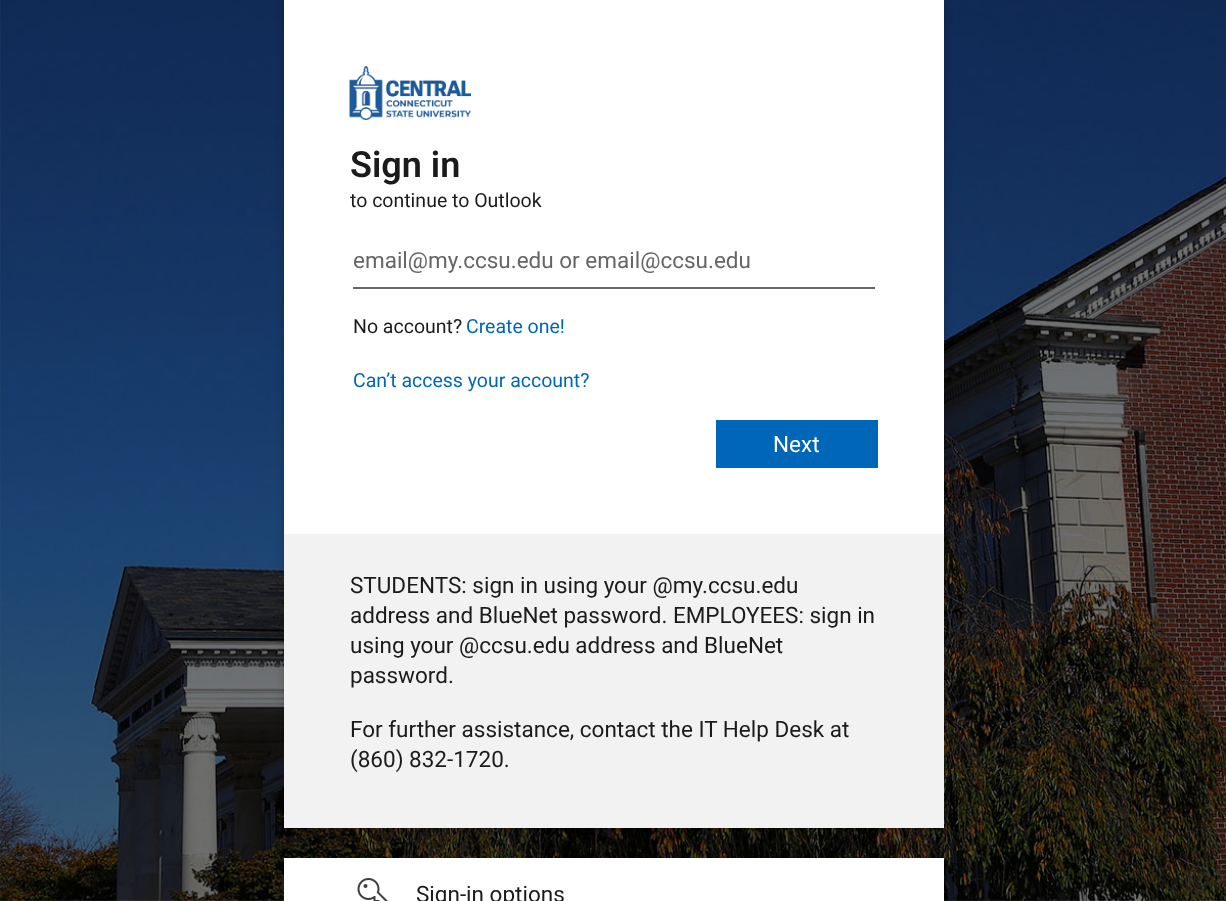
<svg xmlns="http://www.w3.org/2000/svg" width="1226" height="901" viewBox="0 0 1226 901">
  <rect width="100%" height="100%" fill="#fff"/>
  <image x="0" y="0" width="1226" height="901" href="img/1.png"/>
  <path d="M284 3h660v828H284z" fill="#00000033" filter="blur(4.5px)"/>
  <path d="M284 0h660v534H284z" fill="#fff"/>
  <image x="349" y="66" width="122" height="54" href="img/2.png"/>
  <path d="M353 287h522v2H353z" fill="#666"/>
  <path d="M716 420h162v48H716z" fill="#0067b8"/>
  <path d="M284 534h660v294H284z" fill="#f2f2f2"/>
  <path d="M284 861h660v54H284z" fill="#00000033" filter="blur(4.5px)"/>
  <path d="M284 858h660v43H284z" fill="#fff"/>
  <image x="357" y="878" width="31" height="23" href="img/3.png"/>
  <text x="350" y="177" font-family="Roboto" font-size="36" font-weight="600" fill="#1b1b1b">Sign in</text>
  <text x="350" y="207" font-family="Roboto" font-size="19.5" fill="#1b1b1b">to continue to Outlook</text>
  <text x="353" y="268" font-family="Roboto" font-size="22.5" fill="#666">email@my.ccsu.edu or email@ccsu.edu</text>
  <text x="353" y="333" font-family="Roboto" font-size="19.5" fill="#1b1b1b">No account?</text>
  <g font-family="Roboto" font-size="19.5" fill="#0067b8">
    <text x="466" y="333">Create one!</text>
    <text x="353" y="387">Can’t access your account?</text>
  </g>
  <text x="773" y="452" font-family="Roboto" font-size="22.5" fill="#fff">Next</text>
  <g font-family="Roboto" font-size="22.5" fill="#1b1b1b">
    <text x="350" y="593">STUDENTS: sign in using your @my.ccsu.edu</text>
    <text x="350" y="623">address and BlueNet password. EMPLOYEES: sign in</text>
    <text x="350" y="653">using your @ccsu.edu address and BlueNet</text>
    <text x="350" y="683">password.</text>
    <text x="350" y="737">For further assistance, contact the IT Help Desk at</text>
    <text x="350" y="767">(860) 832-1720.</text>
    <text x="416" y="902">Sign-in options</text>
  </g>
</svg>
